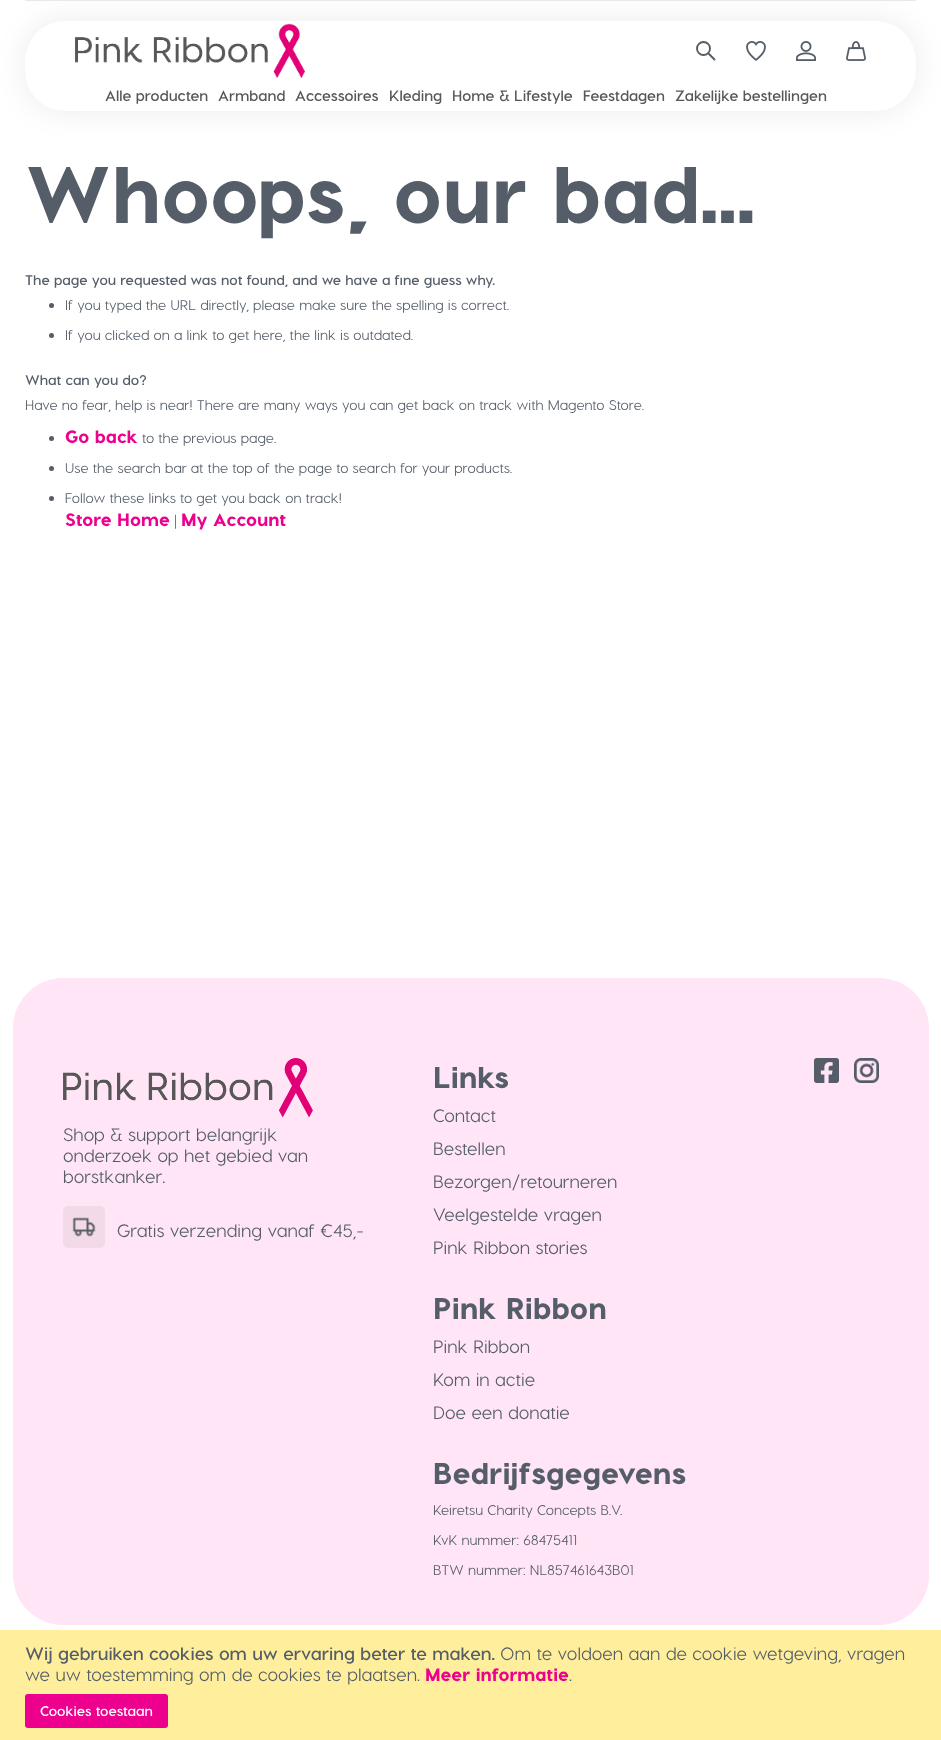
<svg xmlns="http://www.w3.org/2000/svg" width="941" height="1740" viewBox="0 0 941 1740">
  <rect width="100%" height="100%" fill="#fff"/>
  <rect x="25" y="21" width="891" height="90" rx="40" fill="#00000014" filter="blur(15px)"/>
  <path d="M25 0h891v1H25z" fill="#e8e8e8"/>
  <rect x="25" y="21" width="891" height="90" rx="40" fill="#fff"/>
  <image x="796" y="41" width="20" height="20" href="img/1.png"/>
  <image x="75" y="23" width="230" height="55" href="img/2.png"/>
  <circle cx="703.5" cy="48.5" r="6.5" fill="none" stroke="#545d68" stroke-width="1.9"/>
  <path d="M709 54L714.5 59.5" fill="none" stroke="#545d68" stroke-width="1.9" stroke-linecap="round"/>
  <image x="746" y="41" width="20" height="20" href="img/3.png"/>
  <image x="846" y="41" width="20" height="20" href="img/4.png"/>
  <circle cx="51.5" cy="305.5" r="2.5" fill="#545d68"/>
  <circle cx="51.5" cy="335.5" r="2.5" fill="#545d68"/>
  <circle cx="51.5" cy="438.5" r="2.5" fill="#545d68"/>
  <circle cx="51.5" cy="468.5" r="2.5" fill="#545d68"/>
  <circle cx="51.5" cy="498.5" r="2.5" fill="#545d68"/>
  <rect x="13" y="978" width="916" height="647" rx="50" fill="#ffe5f5"/>
  <image x="63" y="1058" width="250" height="60" href="img/5.png"/>
  <image x="63" y="1206" width="42" height="42" href="img/6.png"/>
  <image x="814" y="1058" width="25" height="25" href="img/7.png"/>
  <image x="854" y="1058" width="25" height="25" href="img/8.png"/>
  <path d="M0 1630h941v110H0z" fill="#ffee9c"/>
  <rect x="25" y="1694" width="143" height="34" rx="3" fill="#ed008d"/>
  <g font-family="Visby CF" font-size="15" font-weight="bold" fill="#575757">
    <text x="105" y="101">Alle producten</text>
    <text x="218" y="101">Armband</text>
    <text x="295" y="101">Accessoires</text>
    <text x="389" y="101">Kleding</text>
    <text x="452" y="101">Home &amp; Lifestyle</text>
    <text x="583" y="101">Feestdagen</text>
    <text x="675" y="101">Zakelijke bestellingen</text>
  </g>
  <text x="25" y="223" font-family="Visby CF" font-size="80" font-weight="900" fill="#545d68">Whoops, our bad...</text>
  <text x="25" y="285" font-family="Visby CF" font-size="14" font-weight="bold" fill="#545d68">The page you requested was not found, and we have a fine guess why.</text>
  <g font-family="Visby CF" font-size="14" font-weight="500" fill="#545d68">
    <text x="65" y="310">If you typed the URL directly, please make sure the spelling is correct.</text>
    <text x="65" y="340">If you clicked on a link to get here, the link is outdated.</text>
  </g>
  <text x="25" y="385" font-family="Visby CF" font-size="14" font-weight="bold" fill="#545d68">What can you do?</text>
  <text x="25" y="410" font-family="Visby CF" font-size="14" font-weight="500" fill="#545d68">Have no fear, help is near! There are many ways you can get back on track with Magento Store.</text>
  <text x="65" y="443" font-family="Visby CF" font-size="18" font-weight="900" fill="#ed008d">Go back</text>
  <g font-family="Visby CF" font-size="14" font-weight="500" fill="#545d68">
    <text x="142" y="443">to the previous page.</text>
    <text x="65" y="473">Use the search bar at the top of the page to search for your products.</text>
    <text x="65" y="503">Follow these links to get you back on track!</text>
  </g>
  <text x="65" y="526" font-family="Visby CF" font-size="18" font-weight="900" fill="#ed008d">Store Home</text>
  <text x="174" y="526" font-family="Visby CF" font-size="14" font-weight="500" fill="#545d68">|</text>
  <text x="181" y="526" font-family="Visby CF" font-size="18" font-weight="900" fill="#ed008d">My Account</text>
  <g font-family="Visby CF" font-size="18" font-weight="500" fill="#545d68">
    <text x="63" y="1141">Shop &amp; support belangrijk</text>
    <text x="63" y="1162">onderzoek op het gebied van</text>
    <text x="63" y="1183">borstkanker.</text>
    <text x="117" y="1237">Gratis verzending vanaf €45,-</text>
  </g>
  <text x="433" y="1088" font-family="Visby CF" font-size="30" font-weight="900" fill="#545d68">Links</text>
  <g font-family="Visby CF" font-size="18" font-weight="500" fill="#545d68">
    <text x="433" y="1122">Contact</text>
    <text x="433" y="1155">Bestellen</text>
    <text x="433" y="1188">Bezorgen/retourneren</text>
    <text x="433" y="1221">Veelgestelde vragen</text>
    <text x="433" y="1254">Pink Ribbon stories</text>
  </g>
  <text x="433" y="1319" font-family="Visby CF" font-size="30" font-weight="900" fill="#545d68">Pink Ribbon</text>
  <g font-family="Visby CF" font-size="18" font-weight="500" fill="#545d68">
    <text x="433" y="1353">Pink Ribbon</text>
    <text x="433" y="1386">Kom in actie</text>
    <text x="433" y="1419">Doe een donatie</text>
  </g>
  <text x="433" y="1484" font-family="Visby CF" font-size="30" font-weight="900" fill="#545d68">Bedrijfsgegevens</text>
  <g font-family="Visby CF" font-size="14" font-weight="500" fill="#545d68">
    <text x="433" y="1515">Keiretsu Charity Concepts B.V.</text>
    <text x="433" y="1545">KvK nummer: 68475411</text>
    <text x="433" y="1575">BTW nummer: NL857461643B01</text>
  </g>
  <text x="25" y="1660" font-family="Visby CF" font-size="18" font-weight="bold" fill="#545d68">Wij gebruiken cookies om uw ervaring beter te maken.</text>
  <g font-family="Visby CF" font-size="18" font-weight="500" fill="#545d68">
    <text x="500" y="1660">Om te voldoen aan de cookie wetgeving, vragen</text>
    <text x="25" y="1681">we uw toestemming om de cookies te plaatsen.</text>
  </g>
  <text x="425" y="1681" font-family="Visby CF" font-size="18" font-weight="900" fill="#ed008d">Meer informatie</text>
  <text x="569" y="1681" font-family="Visby CF" font-size="18" font-weight="500" fill="#545d68">.</text>
  <text x="40" y="1716" font-family="Visby CF" font-size="14" font-weight="bold" fill="#fff">Cookies toestaan</text>
</svg>
